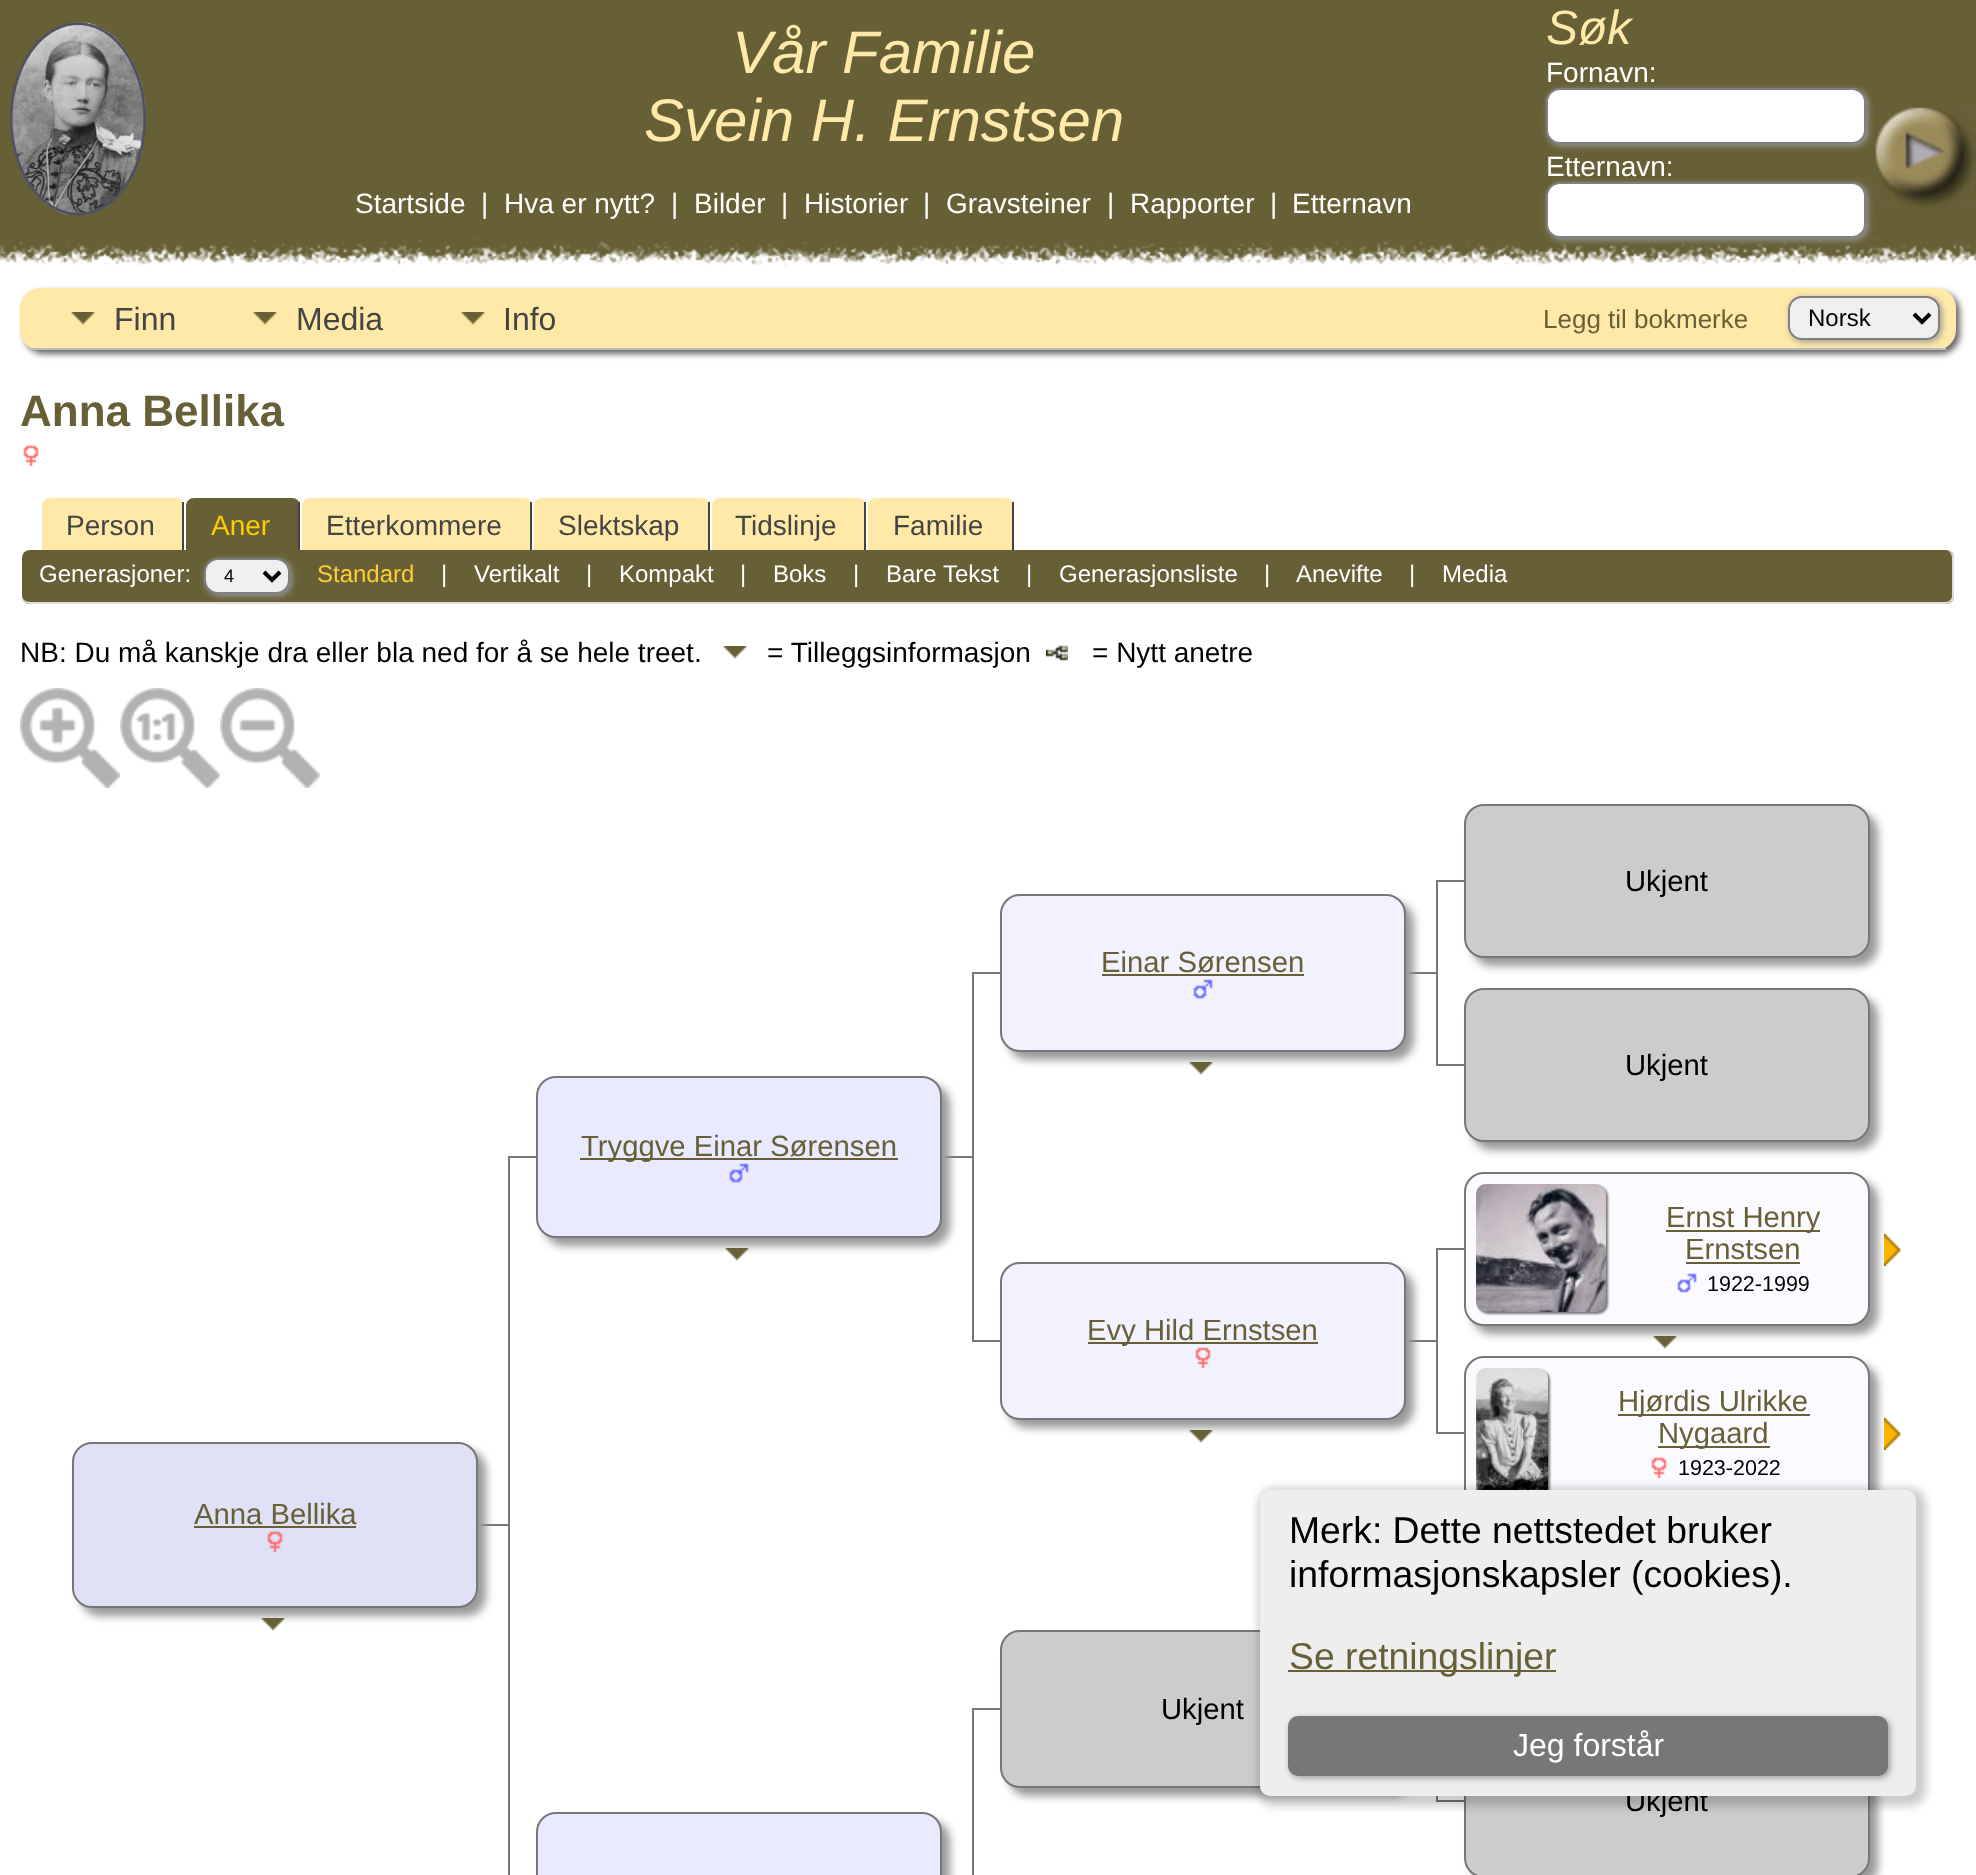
<svg xmlns="http://www.w3.org/2000/svg" width="1976" height="1875" viewBox="0 0 1976 1875">
  <rect width="100%" height="100%" fill="#676037"/>
  <image x="10" y="22" width="136" height="194" href="img/1.png"/>
  <image x="1866" y="104" width="110" height="108" href="img/2.png"/>
  <rect x="1548" y="90" width="320" height="56" rx="14" fill="#999" filter="blur(3px)"/>
  <rect x="1547" y="89" width="318" height="54" rx="13" fill="#fff" stroke="#808080" stroke-width="2"/>
  <image x="0" y="238" width="1976" height="28" href="img/3.png"/>
  <rect x="1548" y="184" width="320" height="56" rx="14" fill="#999" filter="blur(3px)"/>
  <rect x="1547" y="183" width="318" height="54" rx="13" fill="#fff" stroke="#808080" stroke-width="2"/>
  <path d="M0 266h1976v1609H0z" fill="#fff"/>
  <rect x="24" y="292" width="1936" height="62" rx="20" fill="#666" filter="blur(3px)"/>
  <rect x="20" y="288" width="1936" height="62" rx="20" fill="#ffe9a9"/>
  <path d="M30 348h1916v2H30z" fill="#bbb"/>
  <image x="71" y="312" width="24" height="13" href="img/4.png"/>
  <image x="253" y="312" width="24" height="13" href="img/4.png"/>
  <image x="461" y="312" width="24" height="13" href="img/4.png"/>
  <rect x="1790" y="298" width="152" height="44" rx="14" fill="#999" filter="blur(3px)"/>
  <rect x="1789" y="297" width="150" height="42" rx="13" fill="#efefef" stroke="#808080" stroke-width="2"/>
  <path d="M1914 314L1922 322L1930 314" fill="none" stroke="#000" stroke-width="4"/>
  <image x="23" y="445" width="16" height="21" href="img/5.png"/>
  <path d="M50 498H176C180.5 498 184 501.5 184 506V550H42V506C42 501.5 45.5 498 50 498Z" fill="#ffe9a9"/>
  <path d="M182 502h2v48H182z" fill="#444"/>
  <path d="M194 498H292C296.5 498 300 501.5 300 506V550H186V506C186 501.5 189.5 498 194 498Z" fill="#676037"/>
  <path d="M298 502h2v48H298z" fill="#444"/>
  <path d="M310 498H524C528.5 498 532 501.5 532 506V550H302V506C302 501.5 305.5 498 310 498Z" fill="#ffe9a9"/>
  <path d="M530 502h2v48H530z" fill="#444"/>
  <path d="M542 498H702C706.5 498 710 501.5 710 506V550H534V506C534 501.5 537.5 498 542 498Z" fill="#ffe9a9"/>
  <path d="M708 502h2v48H708z" fill="#444"/>
  <path d="M720 498H858C862.5 498 866 501.5 866 506V550H712V506C712 501.5 715.5 498 720 498Z" fill="#ffe9a9"/>
  <path d="M864 502h2v48H864z" fill="#444"/>
  <path d="M876 498H1006C1010.5 498 1014 501.5 1014 506V550H868V506C868 501.5 871.5 498 876 498Z" fill="#ffe9a9"/>
  <path d="M1012 502h2v48H1012z" fill="#444"/>
  <rect x="22" y="550" width="1932" height="54" rx="8" fill="#676037"/>
  <path d="M30 550H1946C1950 550 1954 554 1954 558V596C1954 600 1950 604 1946 604H30C26 604 22 600 22 596V558C22 554 26 550 30 550ZM30 550H1946C1949 550 1952 554 1952 558V596C1952 599 1949 602 1946 602H30C26 602 22 599 22 596V558C22 554 26 550 30 550Z" fill="#ddd" fill-rule="evenodd"/>
  <rect x="206" y="560" width="86" height="36" rx="14" fill="#999" filter="blur(3px)"/>
  <rect x="205" y="559" width="84" height="34" rx="13" fill="#efefef" stroke="#808080" stroke-width="2"/>
  <path d="M264 572L272 580L280 572" fill="none" stroke="#000" stroke-width="4"/>
  <image x="723" y="646" width="24" height="13" href="img/6.png"/>
  <image x="1046" y="645" width="22" height="16" href="img/7.png"/>
  <image x="20" y="688" width="100" height="100" href="img/8.png"/>
  <image x="120" y="688" width="100" height="100" href="img/9.png"/>
  <image x="220" y="688" width="100" height="100" href="img/10.png"/>
  <path d="M1436 880h34v2H1436z" fill="#777"/>
  <rect x="1472" y="812" width="406" height="154" rx="20" fill="#999" filter="blur(4px)"/>
  <rect x="1465" y="805" width="404" height="152" rx="19" fill="#ccc" stroke="#777" stroke-width="2"/>
  <path d="M972 972h34v2H972z" fill="#777"/>
  <path d="M1404 972h32v2H1404z" fill="#777"/>
  <rect x="1008" y="902" width="406" height="158" rx="20" fill="#999" filter="blur(4px)"/>
  <rect x="1001" y="895" width="404" height="156" rx="19" fill="#f2f2ff" stroke="#777" stroke-width="2"/>
  <path d="M1102 974h202v2H1102z" fill="#676037"/>
  <image x="1193" y="979" width="20" height="20" href="img/11.png"/>
  <image x="1189" y="1062" width="24" height="13" href="img/12.png"/>
  <path d="M1436 880h2v94H1436z" fill="#777"/>
  <path d="M972 972h2v186H972z" fill="#777"/>
  <path d="M1436 1064h34v2H1436z" fill="#777"/>
  <path d="M1436 974h2v92H1436z" fill="#777"/>
  <rect x="1472" y="996" width="406" height="154" rx="20" fill="#999" filter="blur(4px)"/>
  <rect x="1465" y="989" width="404" height="152" rx="19" fill="#ccc" stroke="#777" stroke-width="2"/>
  <path d="M508 1156h34v2H508z" fill="#777"/>
  <path d="M940 1156h32v2H940z" fill="#777"/>
  <rect x="544" y="1084" width="406" height="162" rx="20" fill="#999" filter="blur(4px)"/>
  <rect x="537" y="1077" width="404" height="160" rx="19" fill="#e9e9ff" stroke="#777" stroke-width="2"/>
  <path d="M580 1158h318v2H580z" fill="#676037"/>
  <image x="729" y="1163" width="20" height="20" href="img/13.png"/>
  <image x="725" y="1248" width="24" height="13" href="img/12.png"/>
  <path d="M508 1156h2v719H508z" fill="#777"/>
  <path d="M972 1340h34v2H972z" fill="#777"/>
  <path d="M972 1158h2v184H972z" fill="#777"/>
  <path d="M1436 1248h34v2H1436z" fill="#777"/>
  <rect x="1472" y="1180" width="406" height="154" rx="20" fill="#999" filter="blur(4px)"/>
  <rect x="1465" y="1173" width="404" height="152" rx="19" fill="#fbfbff" stroke="#777" stroke-width="2"/>
  <rect x="1478" y="1186" width="130" height="128" rx="10" fill="#777" filter="blur(1px)"/>
  <image x="1476" y="1184" width="130" height="128" href="img/14.png"/>
  <path d="M1666 1230h154v2H1666z" fill="#676037"/>
  <path d="M1686 1262h114v2H1686z" fill="#676037"/>
  <image x="1677" y="1273" width="20" height="20" href="img/15.png"/>
  <image x="1653" y="1336" width="24" height="13" href="img/12.png"/>
  <image x="1884" y="1234" width="17" height="32" href="img/16.png"/>
  <path d="M1404 1340h32v2H1404z" fill="#777"/>
  <rect x="1008" y="1270" width="406" height="158" rx="20" fill="#999" filter="blur(4px)"/>
  <rect x="1001" y="1263" width="404" height="156" rx="19" fill="#f2f2ff" stroke="#777" stroke-width="2"/>
  <path d="M1088 1342h230v2H1088z" fill="#676037"/>
  <image x="1195" y="1347" width="16" height="21" href="img/17.png"/>
  <image x="1189" y="1430" width="24" height="13" href="img/12.png"/>
  <path d="M1436 1248h2v94H1436z" fill="#777"/>
  <path d="M1436 1432h34v2H1436z" fill="#777"/>
  <path d="M1436 1342h2v92H1436z" fill="#777"/>
  <rect x="1472" y="1364" width="406" height="154" rx="20" fill="#999" filter="blur(4px)"/>
  <rect x="1465" y="1357" width="404" height="152" rx="19" fill="#fbfbff" stroke="#777" stroke-width="2"/>
  <rect x="1478" y="1370" width="72" height="130" rx="10" fill="#777" filter="blur(1px)"/>
  <image x="1476" y="1368" width="72" height="122" href="img/18.png"/>
  <path d="M1618 1414h192v2H1618z" fill="#676037"/>
  <path d="M1658 1446h112v2H1658z" fill="#676037"/>
  <image x="1651" y="1457" width="16" height="21" href="img/19.png"/>
  <image x="1884" y="1418" width="17" height="32" href="img/16.png"/>
  <path d="M476 1524h32v2H476z" fill="#777"/>
  <rect x="80" y="1450" width="406" height="166" rx="20" fill="#999" filter="blur(4px)"/>
  <rect x="73" y="1443" width="404" height="164" rx="19" fill="#e0e0f7" stroke="#777" stroke-width="2"/>
  <path d="M194 1526h162v2H194z" fill="#676037"/>
  <image x="267" y="1531" width="16" height="21" href="img/20.png"/>
  <image x="261" y="1618" width="24" height="13" href="img/12.png"/>
  <path d="M972 1708h34v2H972z" fill="#777"/>
  <rect x="1008" y="1638" width="406" height="158" rx="20" fill="#999" filter="blur(4px)"/>
  <rect x="1001" y="1631" width="404" height="156" rx="19" fill="#ccc" stroke="#777" stroke-width="2"/>
  <path d="M972 1708h2v167H972z" fill="#777"/>
  <path d="M1436 1800h34v2H1436z" fill="#777"/>
  <path d="M1436 1796h2v6H1436z" fill="#777"/>
  <rect x="1472" y="1732" width="406" height="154" rx="20" fill="#999" filter="blur(4px)"/>
  <rect x="1465" y="1725" width="404" height="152" rx="19" fill="#ccc" stroke="#777" stroke-width="2"/>
  <rect x="544" y="1820" width="406" height="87" rx="20" fill="#999" filter="blur(4px)"/>
  <rect x="537" y="1813" width="404" height="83" rx="19" fill="#e9e9ff" stroke="#777" stroke-width="2"/>
  <rect x="1258" y="1488" width="668" height="318" rx="16" fill="#00000033" filter="blur(4px)"/>
  <g font-family="Liberation Sans" font-size="60" font-style="italic" fill="#ffe9a9">
    <text x="732" y="73">Vår Familie</text>
    <text x="644" y="141">Svein H. Ernstsen</text>
  </g>
  <g font-family="Liberation Sans" font-size="28" fill="#fff">
    <text x="355" y="213">Startside</text>
    <text x="481" y="213">|</text>
    <text x="504" y="213">Hva er nytt?</text>
    <text x="671" y="213">|</text>
    <text x="694" y="213">Bilder</text>
    <text x="781" y="213">|</text>
    <text x="804" y="213">Historier</text>
    <text x="923" y="213">|</text>
    <text x="946" y="213">Gravsteiner</text>
    <text x="1107" y="213">|</text>
    <text x="1130" y="213">Rapporter</text>
    <text x="1270" y="213">|</text>
    <text x="1292" y="213">Etternavn</text>
  </g>
  <text x="1546" y="44" font-family="Liberation Sans" font-size="48" font-style="italic" fill="#ffe9a9">Søk</text>
  <g font-family="Liberation Sans" font-size="28" fill="#fff">
    <text x="1546" y="82">Fornavn:</text>
    <text x="1546" y="176">Etternavn:</text>
  </g>
  <g font-family="Liberation Sans" font-size="32" fill="#444">
    <text x="114" y="330">Finn</text>
    <text x="296" y="330">Media</text>
    <text x="503" y="330">Info</text>
  </g>
  <text x="1543" y="328" font-family="Liberation Sans" font-size="26" fill="#676037">Legg til bokmerke</text>
  <text x="1808" y="326" font-family="Liberation Sans" font-size="24" fill="#000">Norsk</text>
  <text x="20" y="426" font-family="Liberation Sans" font-size="44" font-weight="bold" fill="#676037">Anna Bellika</text>
  <text x="66" y="535" font-family="Liberation Sans" font-size="28" fill="#444">Person</text>
  <text x="211" y="535" font-family="Liberation Sans" font-size="28" fill="#fc0">Aner</text>
  <g font-family="Liberation Sans" font-size="28" fill="#444">
    <text x="326" y="535">Etterkommere</text>
    <text x="558" y="535">Slektskap</text>
    <text x="735" y="535">Tidslinje</text>
    <text x="893" y="535">Familie</text>
  </g>
  <text x="39" y="582" font-family="Liberation Sans" font-size="24" fill="#fff">Generasjoner:</text>
  <text x="224" y="582" font-family="Liberation Sans" font-size="18" fill="#000">4</text>
  <text x="317" y="582" font-family="Liberation Sans" font-size="24" fill="#fc3">Standard</text>
  <g font-family="Liberation Sans" font-size="24" fill="#fff">
    <text x="441" y="582">|</text>
    <text x="474" y="582">Vertikalt</text>
    <text x="586" y="582">|</text>
    <text x="619" y="582">Kompakt</text>
    <text x="740" y="582">|</text>
    <text x="773" y="582">Boks</text>
    <text x="853" y="582">|</text>
    <text x="886" y="582">Bare Tekst</text>
    <text x="1026" y="582">|</text>
    <text x="1059" y="582">Generasjonsliste</text>
    <text x="1264" y="582">|</text>
    <text x="1296" y="582">Anevifte</text>
    <text x="1409" y="582">|</text>
    <text x="1442" y="582">Media</text>
  </g>
  <g font-family="Liberation Sans" font-size="28" fill="#000">
    <text x="20" y="662">NB: Du må kanskje dra eller bla ned for å se hele treet.</text>
    <text x="767" y="662">= Tilleggsinformasjon</text>
    <text x="1092" y="662">= Nytt anetre</text>
  </g>
  <text x="1625" y="891" font-family="Liberation Sans" font-size="29.25" fill="#000">Ukjent</text>
  <text x="1101" y="972" font-family="Liberation Sans" font-size="29.25" fill="#676037">Einar Sørensen</text>
  <text x="1625" y="1075" font-family="Liberation Sans" font-size="29.25" fill="#000">Ukjent</text>
  <g font-family="Liberation Sans" font-size="29.25" fill="#676037">
    <text x="581" y="1156">Tryggve Einar Sørensen</text>
    <text x="1666" y="1227">Ernst Henry</text>
    <text x="1685" y="1259">Ernstsen</text>
  </g>
  <text x="1707" y="1291" font-family="Liberation Sans" font-size="21.5" fill="#000">1922-1999</text>
  <g font-family="Liberation Sans" font-size="29.25" fill="#676037">
    <text x="1087" y="1340">Evy Hild Ernstsen</text>
    <text x="1618" y="1411">Hjørdis Ulrikke</text>
    <text x="1658" y="1443">Nygaard</text>
  </g>
  <text x="1678" y="1475" font-family="Liberation Sans" font-size="21.5" fill="#000">1923-2022</text>
  <text x="194" y="1524" font-family="Liberation Sans" font-size="29.25" fill="#676037">Anna Bellika</text>
  <g font-family="Liberation Sans" font-size="29.25" fill="#000">
    <text x="1161" y="1719">Ukjent</text>
    <text x="1625" y="1811">Ukjent</text>
  </g>
  <rect x="1260" y="1490" width="656" height="306" rx="10" fill="#eee"/>
  <g font-family="Liberation Sans" font-size="37.3" fill="#000">
    <text x="1289" y="1543">Merk: Dette nettstedet bruker</text>
    <text x="1289" y="1587">informasjonskapsler (cookies).</text>
  </g>
  <path d="M1288 1670h268v2H1288z" fill="#676037"/>
  <text x="1289" y="1669" font-family="Liberation Sans" font-size="37.3" fill="#676037">Se retningslinjer</text>
  <rect x="1290" y="1718" width="600" height="60" rx="10" fill="#999" filter="blur(3px)"/>
  <rect x="1288" y="1716" width="600" height="60" rx="10" fill="#777"/>
  <text x="1513" y="1756" font-family="Liberation Sans" font-size="32" fill="#fff">Jeg forstår</text>
</svg>
